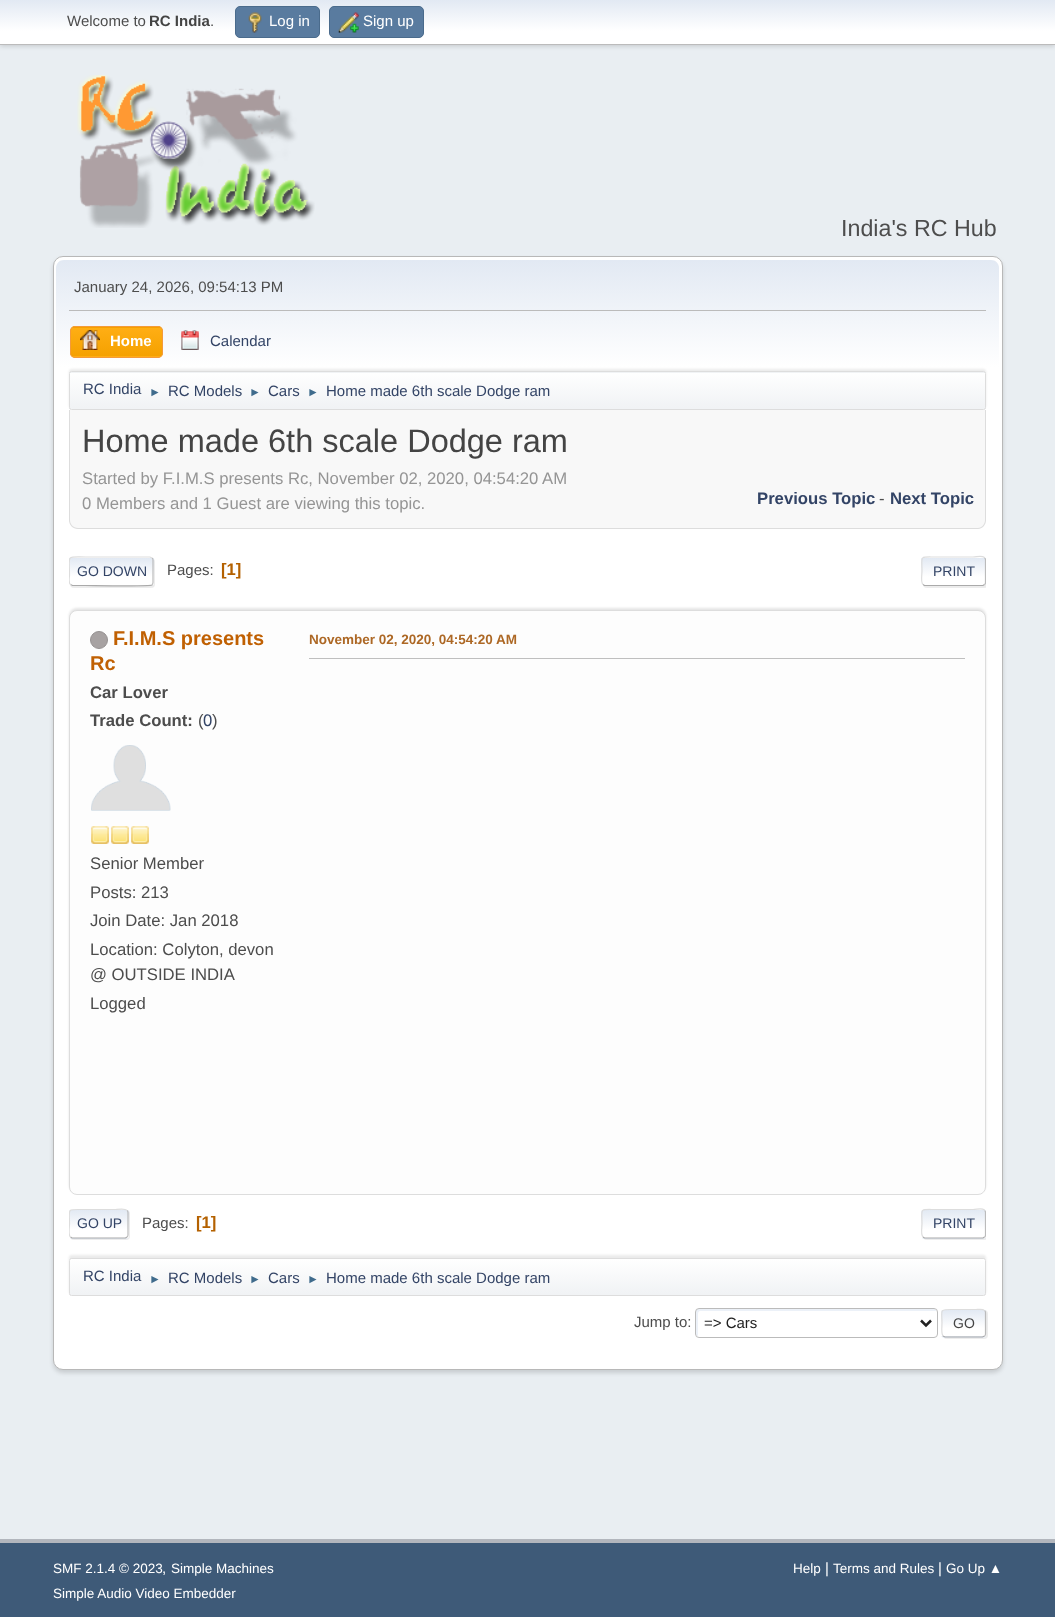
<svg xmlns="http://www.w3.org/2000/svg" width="1055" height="1617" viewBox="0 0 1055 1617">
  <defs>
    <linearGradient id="g1" gradientUnits="userSpaceOnUse" x1="528" y1="0" x2="528" y2="44"><stop offset="0" stop-color="#e2e9f3"/><stop offset="0.7" stop-color="#fff"/></linearGradient>
    <linearGradient id="g2" gradientUnits="userSpaceOnUse" x1="528" y1="260" x2="528" y2="413"><stop offset="0" stop-color="#e2e9f3"/><stop offset="0.7" stop-color="#fff"/></linearGradient>
    <clipPath id="clip1"><rect x="70" y="326" width="93" height="32" rx="5"/></clipPath>
    <linearGradient id="g3" gradientUnits="userSpaceOnUse" x1="116" y1="299" x2="116" y2="328"><stop offset="0" stop-color="#ffae14"/><stop offset="1" stop-color="#f5a100"/></linearGradient>
    <linearGradient id="g4" gradientUnits="userSpaceOnUse" x1="116" y1="328" x2="116" y2="356"><stop offset="0" stop-color="#ffae14"/><stop offset="1" stop-color="#f5a100"/></linearGradient>
    <linearGradient id="g5" gradientUnits="userSpaceOnUse" x1="116" y1="356" x2="116" y2="385"><stop offset="0" stop-color="#ffae14"/><stop offset="1" stop-color="#f5a100"/></linearGradient>
    <clipPath id="clip2"><rect x="69" y="371" width="917" height="39" rx="2.5"/></clipPath>
    <linearGradient id="g6" gradientUnits="userSpaceOnUse" x1="528" y1="336" x2="528" y2="373"><stop offset="0" stop-color="#fff"/><stop offset="0.95" stop-color="#f1f3f5"/></linearGradient>
    <linearGradient id="g7" gradientUnits="userSpaceOnUse" x1="528" y1="372" x2="528" y2="409"><stop offset="0" stop-color="#fff"/><stop offset="0.95" stop-color="#f1f3f5"/></linearGradient>
    <clipPath id="clip3"><rect x="69" y="556" width="85" height="30" rx="4"/></clipPath>
    <linearGradient id="g8" gradientUnits="userSpaceOnUse" x1="111" y1="558" x2="111" y2="585"><stop offset="0" stop-color="#e2e9f3"/><stop offset="0.7" stop-color="#fff"/></linearGradient>
    <clipPath id="clip4"><path d="M69 548h917v47H69z"/></clipPath>
    <clipPath id="clip5"><path d="M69 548h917v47H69z"/></clipPath>
    <clipPath id="clip6"><rect x="921" y="556" width="65" height="30" rx="4"/></clipPath>
    <linearGradient id="g9" gradientUnits="userSpaceOnUse" x1="954" y1="558" x2="954" y2="585"><stop offset="0" stop-color="#e2e9f3"/><stop offset="0.7" stop-color="#fff"/></linearGradient>
    <clipPath id="clip7"><rect x="69" y="1209" width="60" height="30" rx="4"/></clipPath>
    <linearGradient id="g10" gradientUnits="userSpaceOnUse" x1="99" y1="1210" x2="99" y2="1238"><stop offset="0" stop-color="#e2e9f3"/><stop offset="0.7" stop-color="#fff"/></linearGradient>
    <linearGradient id="g11" gradientUnits="userSpaceOnUse" x1="99" y1="1238" x2="99" y2="1265"><stop offset="0" stop-color="#e2e9f3"/><stop offset="0.7" stop-color="#fff"/></linearGradient>
    <clipPath id="clip8"><path d="M69 1200h917v48H69z"/></clipPath>
    <clipPath id="clip9"><path d="M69 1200h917v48H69z"/></clipPath>
    <clipPath id="clip10"><rect x="921" y="1209" width="65" height="30" rx="4"/></clipPath>
    <linearGradient id="g12" gradientUnits="userSpaceOnUse" x1="954" y1="1210" x2="954" y2="1238"><stop offset="0" stop-color="#e2e9f3"/><stop offset="0.7" stop-color="#fff"/></linearGradient>
    <linearGradient id="g13" gradientUnits="userSpaceOnUse" x1="954" y1="1238" x2="954" y2="1265"><stop offset="0" stop-color="#e2e9f3"/><stop offset="0.7" stop-color="#fff"/></linearGradient>
    <clipPath id="clip11"><rect x="69" y="1258" width="917" height="38" rx="2.5"/></clipPath>
    <linearGradient id="g14" gradientUnits="userSpaceOnUse" x1="528" y1="1259" x2="528" y2="1295"><stop offset="0" stop-color="#fff"/><stop offset="0.95" stop-color="#f1f3f5"/></linearGradient>
    <clipPath id="clip12"><rect x="941" y="1309" width="45" height="29" rx="4"/></clipPath>
    <linearGradient id="g15" gradientUnits="userSpaceOnUse" x1="964" y1="1310" x2="964" y2="1336"><stop offset="0" stop-color="#e2e9f3"/><stop offset="0.7" stop-color="#fff"/></linearGradient>
    <linearGradient id="g16" gradientUnits="userSpaceOnUse" x1="964" y1="1336" x2="964" y2="1363"><stop offset="0" stop-color="#e2e9f3"/><stop offset="0.7" stop-color="#fff"/></linearGradient>
  </defs>
  <rect width="100%" height="100%" fill="#e9eef2"/>
  <path d="M0 1h1055v45H0z" fill="#00000029" filter="blur(2.5px)"/>
  <path d="M0 0h1055v44H0z" fill="url(#g1)"/>
  <path d="M0 44h1055v1H0z" fill="#bbb"/>
  <rect x="235.5" y="6.5" width="84" height="31" rx="4.5" fill="#597b9f" stroke="#4a6b8c"/>
  <image x="248" y="12" width="14" height="21" href="img/1.png"/>
  <rect x="329.5" y="6.5" width="94" height="31" rx="4.5" fill="#597b9f" stroke="#4a6b8c"/>
  <image x="338" y="12" width="21" height="21" href="img/2.png"/>
  <image x="77" y="75" width="238" height="153" href="img/3.png"/>
  <rect x="53" y="259" width="950" height="1114" rx="10" fill="#00000024" filter="blur(2px)"/>
  <rect x="53.5" y="256.5" width="949" height="1113" rx="9.5" fill="#fff" stroke="#b8b8b8"/>
  <path d="M64 260H991C995.5 260 999 263.5 999 268V413H56V268C56 263.5 59.5 260 64 260Z" fill="url(#g2)"/>
  <path d="M69 310h917v1H69z" fill="#bbb"/>
  <g clip-path="url(#clip1)">
    <path d="M70 326h93v2H70z" fill="url(#g3)"/>
    <path d="M70 328h93v28H70z" fill="url(#g4)"/>
    <path d="M70 356h93v2H70z" fill="url(#g5)"/>
  </g>
  <rect x="70.5" y="326.5" width="92" height="31" rx="4.5" fill="none" stroke="#f49a3a"/>
  <image x="80" y="330" width="20" height="20" href="img/4.png"/>
  <image x="181" y="330" width="18" height="20" href="img/5.png"/>
  <rect x="69" y="369" width="917" height="39" rx="2.5" fill="#00000014" filter="blur(1px)"/>
  <g clip-path="url(#clip2)">
    <path d="M69 371h917v2H69z" fill="url(#g6)"/>
  </g>
  <path d="M69 373h917v36H69z" fill="url(#g7)"/>
  <rect x="69.5" y="371.5" width="916" height="38" rx="2" fill="none" stroke="#ddd"/>
  <path d="M69 410H986V520C986 525 982 529 977 529H78C73 529 69 525 69 520Z" fill="#f8f8f8"/>
  <path d="M69 410H986V520C986 525 982 529 978 529H78C73 529 69 525 69 520ZM70 410H985V520C985 524 982 528 978 528H78C73 528 70 524 70 520Z" fill="#ddd" fill-rule="evenodd"/>
  <rect x="70" y="558" width="85" height="30" rx="4" fill="#dddddd91" filter="blur(0.5px)"/>
  <rect x="69" y="556" width="85" height="30" rx="4" fill="#fff"/>
  <g clip-path="url(#clip3)">
    <path d="M69 558h85v27H69z" fill="url(#g8)"/>
  </g>
  <path d="M152 558C153 558.5 153 559 153 560V582.5C153 583.5 153 584 152 584.5" fill="none" stroke="#bbb" stroke-width="1.2"/>
  <path d="M152 584.5V585C150 586.5 93 585.5 85.5 585.5H72.5L70.5 584.5" fill="none" stroke="#aaa" stroke-width="1.2"/>
  <g clip-path="url(#clip4)">
    <path d="M70.5 584.5C68 582.5 69.5 577.5 69.5 575C69.5 554.5 65.5 557 85.5 557H150L152 558" fill="none" stroke="#ddd" stroke-width="1.2"/>
  </g>
  <g clip-path="url(#clip5)">
    <rect x="923" y="558" width="65" height="30" rx="4" fill="#dddddd91" filter="blur(0.5px)"/>
  </g>
  <g clip-path="url(#clip6)">
    <path d="M921 558h65v27H921z" fill="url(#g9)"/>
  </g>
  <g clip-path="url(#clip4)">
    <path d="M984.5 558C985.5 558.5 985.5 559 985.5 560V582.5C985.5 583.5 985.5 584 984.5 584.5" fill="none" stroke="#bbb" stroke-width="1.2"/>
  </g>
  <path d="M984.5 584.5L983 585.5H924.5L923 584.5" fill="none" stroke="#aaa" stroke-width="1.2"/>
  <path d="M923 584.5C920.5 582.5 922 574 922 571C922 555.5 919 557 934.5 557H973C977 557 981.5 555 984.5 557.5V558" fill="none" stroke="#ddd" stroke-width="1.2"/>
  <rect x="69" y="608" width="917" height="585" rx="8" fill="#0000001a" filter="blur(1px)"/>
  <rect x="69.5" y="610.5" width="916" height="584" rx="7.5" fill="#fdfdfd" stroke="#ddd"/>
  <circle cx="99" cy="640" r="8.5" fill="#a7a2a2" stroke="#969292"/>
  <image x="91" y="745" width="80" height="66" href="img/6.png"/>
  <image x="91" y="826" width="18" height="18" href="img/7.png"/>
  <image x="111" y="826" width="18" height="18" href="img/7.png"/>
  <image x="131" y="826" width="18" height="18" href="img/7.png"/>
  <path d="M309 658h656v1H309z" fill="#bfbfbf"/>
  <rect x="70" y="1210" width="60" height="30" rx="4" fill="#dddddd91" filter="blur(0.5px)"/>
  <rect x="69" y="1209" width="60" height="30" rx="4" fill="#fff"/>
  <g clip-path="url(#clip7)">
    <path d="M69 1210h60v28H69z" fill="url(#g10)"/>
    <path d="M69 1238h60v1H69z" fill="url(#g11)"/>
  </g>
  <path d="M127 1210.5C128 1211 128 1211.5 128 1212.5V1235C128 1236 128 1236.5 127 1237" fill="none" stroke="#bbb" stroke-width="1.2"/>
  <path d="M127 1237L125.5 1238H72L70.5 1237" fill="none" stroke="#aaa" stroke-width="1.2"/>
  <g clip-path="url(#clip8)">
    <path d="M70.5 1237C68 1235 69.5 1226.5 69.5 1224C69.5 1208.5 66.5 1209.5 81 1209.5H116C116.5 1209.5 125 1208 127 1210.5" fill="none" stroke="#ddd" stroke-width="1.2"/>
  </g>
  <g clip-path="url(#clip9)">
    <rect x="923" y="1210" width="65" height="30" rx="4" fill="#dddddd91" filter="blur(0.5px)"/>
  </g>
  <rect x="921" y="1209" width="65" height="30" rx="4" fill="#fff"/>
  <g clip-path="url(#clip10)">
    <path d="M921 1210h65v28H921z" fill="url(#g12)"/>
    <path d="M921 1238h65v1H921z" fill="url(#g13)"/>
  </g>
  <g clip-path="url(#clip8)">
    <path d="M984.5 1210.5C985.5 1211 985.5 1211.5 985.5 1212.5V1235C985.5 1236 985.5 1236.5 984.5 1237" fill="none" stroke="#bbb" stroke-width="1.2"/>
  </g>
  <path d="M984.5 1237L983 1238H924.5L923 1237" fill="none" stroke="#aaa" stroke-width="1.2"/>
  <path d="M923 1237C920.5 1235 922 1226.5 922 1224C922 1208 919 1209.5 934.5 1209.5H973C977 1209.5 981.5 1207.5 984.5 1210V1210.5" fill="none" stroke="#ddd" stroke-width="1.2"/>
  <rect x="69" y="1255" width="917" height="39" rx="2.5" fill="#00000014" filter="blur(1px)"/>
  <g clip-path="url(#clip11)">
    <path d="M69 1259h917v36H69z" fill="url(#g14)"/>
  </g>
  <rect x="69.5" y="1258.5" width="916" height="37" rx="2" fill="none" stroke="#ddd"/>
  <path d="M700 1311H936C936 1310 935 1309 934 1309H698C697 1309 696 1310 696 1312V1334C696 1335 697 1336 698 1336V1314C698 1312 699 1311 700 1311Z" fill="#ecf1f8"/>
  <rect x="695.5" y="1308.5" width="242" height="29" rx="3.5" fill="none" stroke="#bbb"/>
  <path d="M921 1320.5L926 1325.5L931 1320.5" fill="none" stroke="#222" stroke-width="2.5"/>
  <rect x="943" y="1310" width="45" height="29" rx="4" fill="#dddddd91" filter="blur(0.5px)"/>
  <rect x="941" y="1309" width="45" height="29" rx="4" fill="#fff"/>
  <g clip-path="url(#clip12)">
    <path d="M941 1310h45v26H941z" fill="url(#g15)"/>
    <path d="M941 1336h45v2H941z" fill="url(#g16)"/>
  </g>
  <path d="M984.5 1310.5C985.5 1311 985.5 1311.5 985.5 1312.5V1334C985.5 1334.5 985.5 1335.5 984.5 1336" fill="none" stroke="#bbb" stroke-width="1.2"/>
  <path d="M984.5 1336L982.5 1337H945L943 1336" fill="none" stroke="#aaa" stroke-width="1.2"/>
  <path d="M943 1336C941 1334 942 1325.5 942 1323C942 1310.5 939 1309.5 951 1309.5H976C977.5 1309.5 983 1308.5 984.5 1310.5" fill="none" stroke="#ddd" stroke-width="1.2"/>
  <path d="M0 1543h1055v74H0z" fill="#3e5a78"/>
  <path d="M0 1539h1055v4H0z" fill="#b2b6bd"/>
  <text x="67" y="26" font-family="Liberation Sans" font-size="15" fill="#4d4d4d">Welcome to</text>
  <text x="149" y="26" font-family="Liberation Sans" font-size="15" font-weight="bold" fill="#444">RC India</text>
  <text x="210" y="26" font-family="Liberation Sans" font-size="15" fill="#4d4d4d">.</text>
  <g font-family="Liberation Sans" font-size="15" fill="#fff">
    <text x="269" y="26">Log in</text>
    <text x="363" y="26">Sign up</text>
  </g>
  <text x="841" y="236" font-family="Liberation Sans" font-size="23.25" fill="#4d4d4d">India's RC Hub</text>
  <text x="74" y="292" font-family="Liberation Sans" font-size="15" fill="#4d4d4d">January 24, 2026, 09:54:13 PM</text>
  <text x="110" y="346" font-family="Liberation Sans" font-size="15" font-weight="bold" fill="#fff">Home</text>
  <g font-family="Liberation Sans" font-size="15" fill="#346">
    <text x="210" y="346">Calendar</text>
    <text x="83" y="394">RC India</text>
  </g>
  <text x="149" y="396" font-family="Liberation Sans" font-size="12" fill="#3f6b8c">►</text>
  <text x="168" y="396" font-family="Liberation Sans" font-size="15" fill="#346">RC Models</text>
  <text x="249" y="396" font-family="Liberation Sans" font-size="12" fill="#3f6b8c">►</text>
  <text x="268" y="396" font-family="Liberation Sans" font-size="15" fill="#346">Cars</text>
  <text x="307" y="396" font-family="Liberation Sans" font-size="12" fill="#3f6b8c">►</text>
  <text x="326" y="396" font-family="Liberation Sans" font-size="15" fill="#346">Home made 6th scale Dodge ram</text>
  <text x="82" y="452" font-family="Liberation Sans" font-size="32.5" fill="#444">Home made 6th scale Dodge ram</text>
  <g font-family="Liberation Sans" font-size="16.7" fill="#959595">
    <text x="82" y="484">Started by F.I.M.S presents Rc, November 02, 2020, 04:54:20 AM</text>
    <text x="82" y="509">0 Members and 1 Guest are viewing this topic.</text>
  </g>
  <text x="757" y="504" font-family="Liberation Sans" font-size="16.7" font-weight="bold" fill="#346">Previous Topic</text>
  <text x="879" y="504" font-family="Liberation Sans" font-size="16.7" fill="#4d4d4d">-</text>
  <text x="890" y="504" font-family="Liberation Sans" font-size="16.7" font-weight="bold" fill="#346">Next Topic</text>
  <text x="77" y="576" font-family="Liberation Sans" font-size="14" fill="#346">GO DOWN</text>
  <text x="167" y="575" font-family="Liberation Sans" font-size="15" fill="#4d4d4d">Pages:</text>
  <text x="221" y="575" font-family="Liberation Sans" font-size="16.7" font-weight="bold" fill="#b46100">[1]</text>
  <text x="933" y="576" font-family="Liberation Sans" font-size="14" fill="#346">PRINT</text>
  <g font-family="Liberation Sans" font-size="20" font-weight="bold" fill="#c06002">
    <text x="113" y="645">F.I.M.S presents</text>
    <text x="90" y="670">Rc</text>
  </g>
  <g font-family="Liberation Sans" font-size="16.7" font-weight="bold" fill="#4d4d4d">
    <text x="90" y="698">Car Lover</text>
    <text x="90" y="726">Trade Count:</text>
  </g>
  <text x="198" y="726" font-family="Liberation Sans" font-size="16.7" fill="#4d4d4d">(</text>
  <text x="203" y="726" font-family="Liberation Sans" font-size="16.7" fill="#346">0</text>
  <g font-family="Liberation Sans" font-size="16.7" fill="#4d4d4d">
    <text x="212" y="726">)</text>
    <text x="90" y="869">Senior Member</text>
    <text x="90" y="898">Posts: 213</text>
    <text x="90" y="926">Join Date: Jan 2018</text>
    <text x="90" y="955">Location: Colyton, devon</text>
    <text x="90" y="980">@ OUTSIDE INDIA</text>
    <text x="90" y="1009">Logged</text>
  </g>
  <text x="309" y="644" font-family="Liberation Sans" font-size="13.5" font-weight="bold" fill="#ad6825">November 02, 2020, 04:54:20 AM</text>
  <text x="77" y="1228" font-family="Liberation Sans" font-size="14" fill="#346">GO UP</text>
  <text x="142" y="1228" font-family="Liberation Sans" font-size="15" fill="#4d4d4d">Pages:</text>
  <text x="196" y="1228" font-family="Liberation Sans" font-size="16.7" font-weight="bold" fill="#b46100">[1]</text>
  <text x="933" y="1228" font-family="Liberation Sans" font-size="14" fill="#346">PRINT</text>
  <text x="83" y="1281" font-family="Liberation Sans" font-size="15" fill="#346">RC India</text>
  <text x="149" y="1283" font-family="Liberation Sans" font-size="12" fill="#3f6b8c">►</text>
  <text x="168" y="1283" font-family="Liberation Sans" font-size="15" fill="#346">RC Models</text>
  <text x="249" y="1283" font-family="Liberation Sans" font-size="12" fill="#3f6b8c">►</text>
  <text x="268" y="1283" font-family="Liberation Sans" font-size="15" fill="#346">Cars</text>
  <text x="307" y="1283" font-family="Liberation Sans" font-size="12" fill="#3f6b8c">►</text>
  <text x="326" y="1283" font-family="Liberation Sans" font-size="15" fill="#346">Home made 6th scale Dodge ram</text>
  <text x="634" y="1327" font-family="Liberation Sans" font-size="15" fill="#4d4d4d">Jump to:</text>
  <text x="704" y="1328" font-family="Liberation Sans" font-size="15" fill="#222">=&gt; Cars</text>
  <text x="953" y="1328" font-family="Liberation Sans" font-size="14" fill="#444">GO</text>
  <text x="53" y="1573" font-family="Liberation Sans" font-size="13.5" fill="#fff">SMF 2.1.4 © 2023</text>
  <text x="162" y="1573" font-family="Liberation Sans" font-size="15" fill="#fff">,</text>
  <g font-family="Liberation Sans" font-size="13.5" fill="#fff">
    <text x="171" y="1573">Simple Machines</text>
    <text x="53" y="1598">Simple Audio Video Embedder</text>
    <text x="793" y="1573">Help</text>
  </g>
  <text x="825" y="1573" font-family="Liberation Sans" font-size="15" fill="#fff">|</text>
  <text x="833" y="1573" font-family="Liberation Sans" font-size="13.5" fill="#fff">Terms and Rules</text>
  <text x="938" y="1573" font-family="Liberation Sans" font-size="15" fill="#fff">|</text>
  <text x="946" y="1573" font-family="Liberation Sans" font-size="13.5" fill="#fff">Go Up ▲</text>
</svg>
